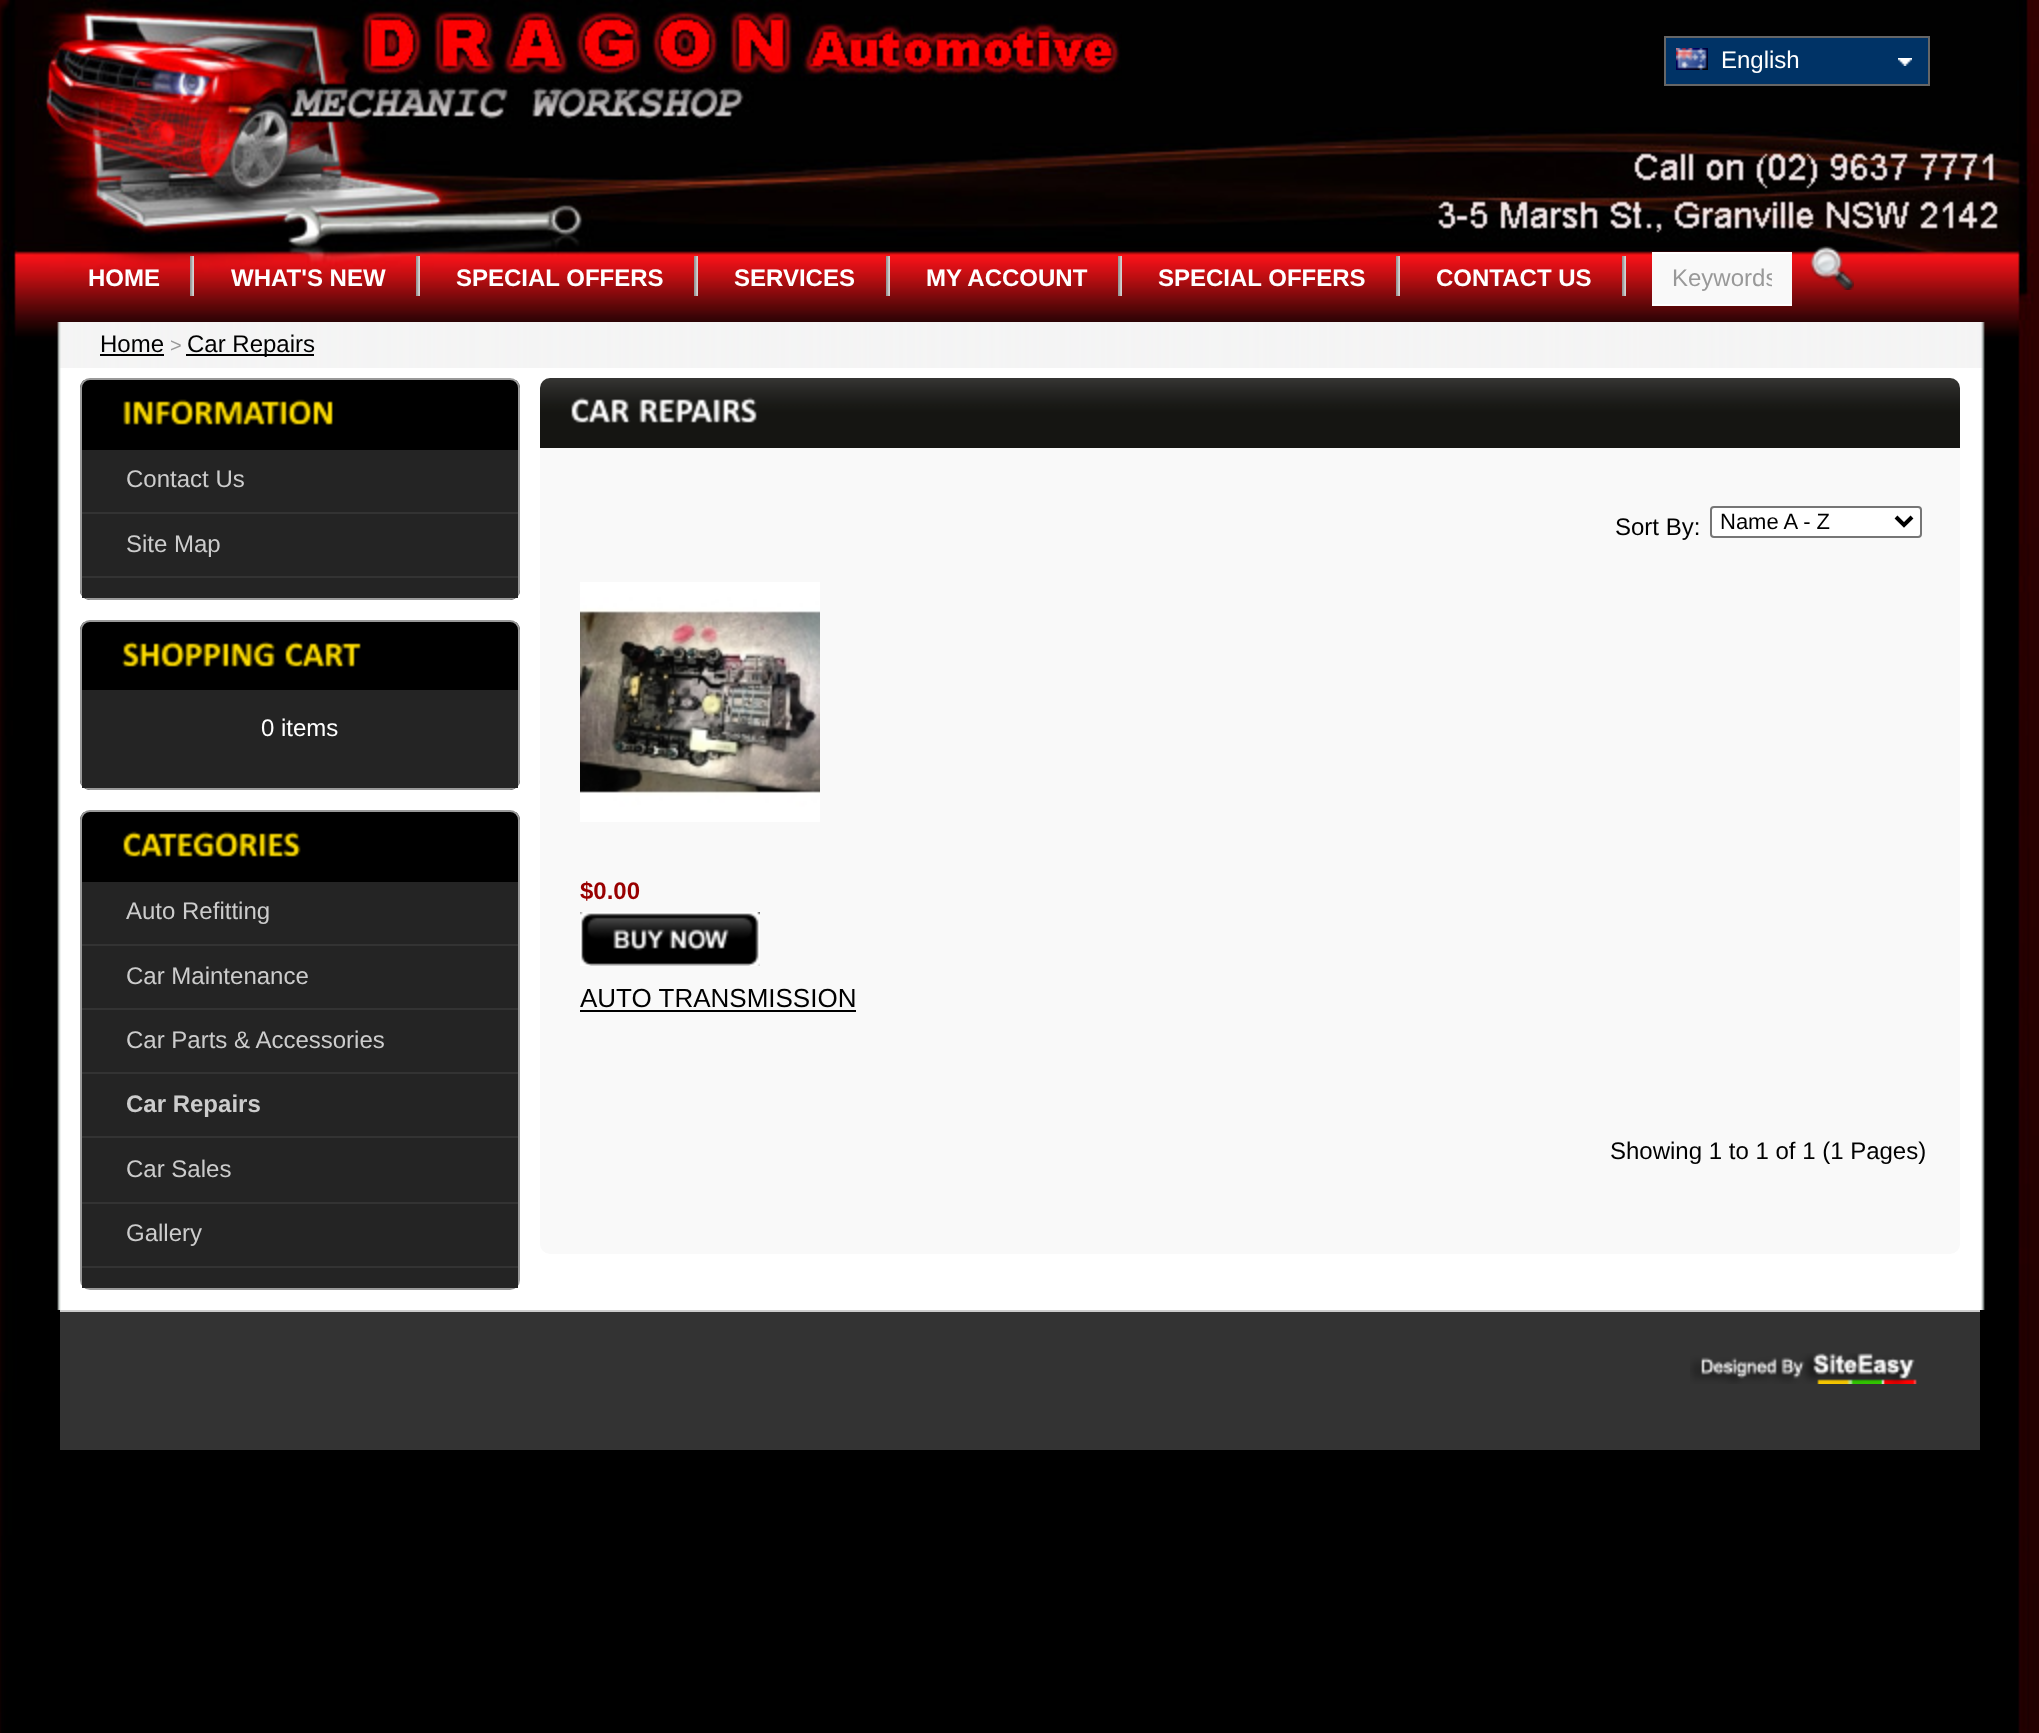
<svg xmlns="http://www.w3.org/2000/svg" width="2039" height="1733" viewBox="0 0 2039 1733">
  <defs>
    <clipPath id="clip1"><path d="M1672 260h100v38H1672z"/></clipPath>
  </defs>
  <rect width="100%" height="100%" fill="#fff"/>
  <image x="0" y="0" width="2039" height="1733" href="img/1.png"/>
  <path d="M1666 38h262v46H1666z" fill="#036"/>
  <image x="1898" y="58" width="14" height="8" href="img/2.png"/>
  <path d="M1665 37h264v48H1665z" fill="none" stroke="#666" stroke-width="2"/>
  <image x="1676" y="48" width="32" height="22" href="img/3.png"/>
  <image x="190" y="256" width="4" height="40" href="img/4.png"/>
  <image x="416" y="256" width="4" height="40" href="img/5.png"/>
  <image x="694" y="256" width="4" height="40" href="img/6.png"/>
  <image x="886" y="256" width="4" height="40" href="img/6.png"/>
  <image x="1118" y="256" width="4" height="40" href="img/6.png"/>
  <image x="1396" y="256" width="4" height="40" href="img/6.png"/>
  <image x="1622" y="256" width="4" height="40" href="img/6.png"/>
  <path d="M1652 252h140v54H1652z" fill="#fff"/>
  <path d="M1652 254h140v50H1652z" fill="#f9f9f9"/>
  <image x="1810" y="246" width="44" height="44" href="img/7.png"/>
  <image x="57" y="322" width="1928" height="46" href="img/8.png"/>
  <path d="M100 354h64v2H100z" fill="#000"/>
  <path d="M186 354h128v2H186z" fill="#000"/>
  <image x="57" y="368" width="1928" height="942" href="img/9.png"/>
  <image x="80" y="380" width="440" height="220" href="img/10.png"/>
  <rect x="81" y="379" width="438" height="220" rx="9" fill="none" stroke="#999" stroke-width="2"/>
  <image x="123" y="399" width="210" height="26" href="img/11.png"/>
  <path d="M82 450h436v126H82z" fill="#242424"/>
  <path d="M82 512h436v2H82z" fill="#333"/>
  <path d="M82 576h436v2H82z" fill="#333"/>
  <path d="M82 578h436v20H82z" fill="#242424"/>
  <image x="80" y="622" width="440" height="168" href="img/12.png"/>
  <rect x="81" y="621" width="438" height="168" rx="9" fill="none" stroke="#999" stroke-width="2"/>
  <image x="122" y="641" width="153" height="26" href="img/13.png"/>
  <image x="285" y="641" width="76" height="26" href="img/14.png"/>
  <path d="M82 690h436v98H82z" fill="#242424"/>
  <image x="80" y="812" width="440" height="70" href="img/15.png"/>
  <rect x="81" y="811" width="438" height="478" rx="9" fill="none" stroke="#999" stroke-width="2"/>
  <image x="123" y="831" width="178" height="26" href="img/16.png"/>
  <path d="M82 882h436v384H82z" fill="#242424"/>
  <path d="M82 944h436v2H82z" fill="#333"/>
  <path d="M82 1008h436v2H82z" fill="#333"/>
  <path d="M82 1072h436v2H82z" fill="#333"/>
  <path d="M82 1136h436v2H82z" fill="#333"/>
  <path d="M82 1202h436v2H82z" fill="#333"/>
  <path d="M82 1266h436v2H82z" fill="#333"/>
  <path d="M82 1268h436v20H82z" fill="#242424"/>
  <rect x="540" y="378" width="1420" height="876" rx="10" fill="#f9f9f9"/>
  <image x="540" y="378" width="1420" height="70" href="img/17.png"/>
  <image x="571" y="397" width="60" height="26" href="img/18.png"/>
  <image x="639" y="397" width="118" height="26" href="img/19.png"/>
  <rect x="1711" y="507" width="210" height="30" rx="3" fill="#fff" stroke="#767676" stroke-width="2"/>
  <path d="M1896 517L1904 525L1912 517" fill="none" stroke="#000" stroke-width="4"/>
  <image x="580" y="582" width="240" height="240" href="img/20.png"/>
  <image x="580" y="912" width="180" height="54" href="img/21.png"/>
  <path d="M580 1010h276v2H580z" fill="#000"/>
  <path d="M60 1312h1920v138H60z" fill="#333"/>
  <path d="M60 1310h1920v2H60z" fill="#ccc"/>
  <image x="1690" y="1353" width="227" height="31" href="img/22.png"/>
  <text x="1721" y="68" font-family="Liberation Sans" font-size="24" fill="#fff">English</text>
  <g font-family="Liberation Sans" font-size="24" font-weight="bold" fill="#fff">
    <text x="88" y="286">HOME</text>
    <text x="231" y="286">WHAT'S NEW</text>
    <text x="456" y="286">SPECIAL OFFERS</text>
    <text x="734" y="286">SERVICES</text>
    <text x="926" y="286">MY ACCOUNT</text>
    <text x="1158" y="286">SPECIAL OFFERS</text>
    <text x="1436" y="286">CONTACT US</text>
  </g>
  <g clip-path="url(#clip1)">
    <text x="1672" y="286" font-family="Liberation Sans" font-size="24" fill="#999">Keywords</text>
  </g>
  <text x="100" y="352" font-family="Liberation Sans" font-size="24" fill="#000">Home</text>
  <text x="170" y="352" font-family="Liberation Sans" font-size="20" fill="#999">&gt;</text>
  <text x="187" y="352" font-family="Liberation Sans" font-size="24" fill="#000">Car Repairs</text>
  <g font-family="Liberation Sans" font-size="24" fill="#ccc">
    <text x="126" y="487">Contact Us</text>
    <text x="126" y="552">Site Map</text>
  </g>
  <text x="261" y="736" font-family="Liberation Sans" font-size="24" fill="#fff">0 items</text>
  <g font-family="Liberation Sans" font-size="24" fill="#ccc">
    <text x="126" y="919">Auto Refitting</text>
    <text x="126" y="984">Car Maintenance</text>
    <text x="126" y="1048">Car Parts &amp; Accessories</text>
  </g>
  <text x="126" y="1112" font-family="Liberation Sans" font-size="24" font-weight="bold" fill="#ccc">Car Repairs</text>
  <g font-family="Liberation Sans" font-size="24" fill="#ccc">
    <text x="126" y="1177">Car Sales</text>
    <text x="126" y="1241">Gallery</text>
  </g>
  <text x="1615" y="535" font-family="Liberation Sans" font-size="24" fill="#000">Sort By:</text>
  <text x="1720" y="529" font-family="Liberation Sans" font-size="22" fill="#000">Name A - Z</text>
  <text x="580" y="899" font-family="Liberation Sans" font-size="24" font-weight="bold" fill="#900">$0.00</text>
  <text x="580" y="1007" font-family="Liberation Sans" font-size="26" fill="#000">AUTO TRANSMISSION</text>
  <text x="1610" y="1159" font-family="Liberation Sans" font-size="24" fill="#000">Showing 1 to 1 of 1 (1 Pages)</text>
</svg>
